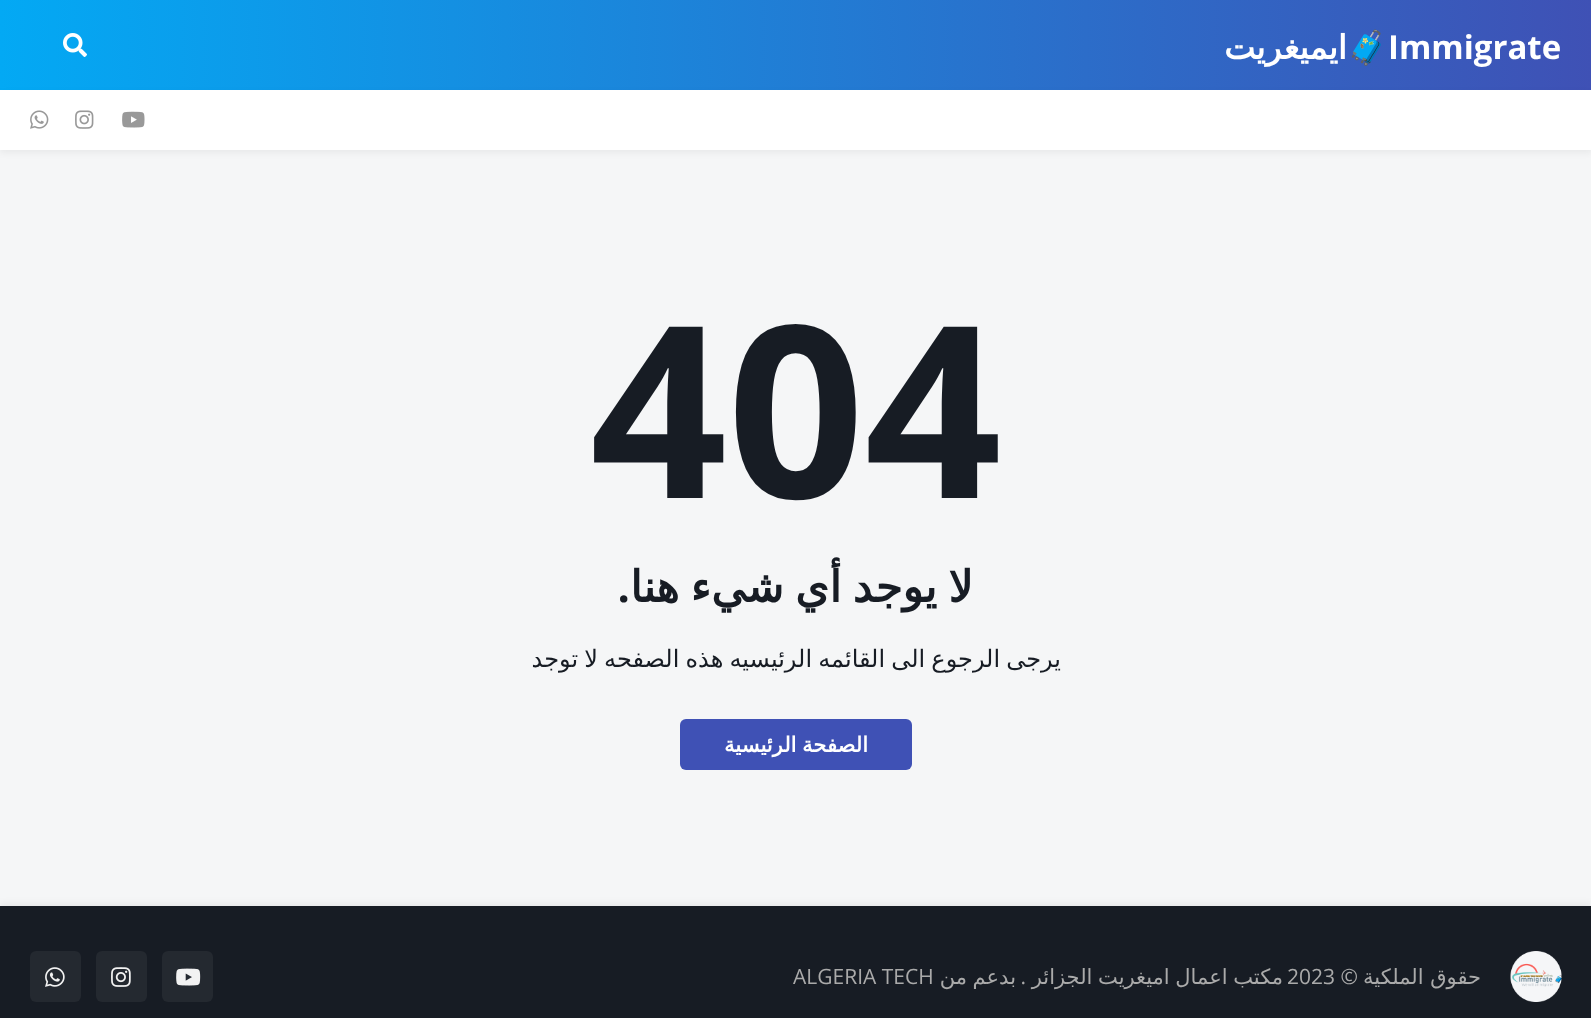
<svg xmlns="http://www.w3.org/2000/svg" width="1591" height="1018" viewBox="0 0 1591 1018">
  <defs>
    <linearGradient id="g1" gradientUnits="userSpaceOnUse" x1="0" y1="45" x2="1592" y2="45"><stop offset="0" stop-color="#03a9f4"/><stop offset="1" stop-color="#3f51b5"/></linearGradient>
  </defs>
  <rect width="100%" height="100%" fill="#f5f6f7"/>
  <path d="M0 0h1591v90H0z" fill="url(#g1)"/>
  <image x="63" y="33" width="24" height="24" href="img/1.png"/>
  <path d="M0 93h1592v60H0z" fill="#0000000d" filter="blur(3px)"/>
  <path d="M0 90h1591v60H0z" fill="#fff"/>
  <image x="122" y="111" width="23" height="17" href="img/2.png"/>
  <image x="75" y="110" width="19" height="19" href="img/3.png"/>
  <image x="30" y="110" width="19" height="19" href="img/4.png"/>
  <rect x="680" y="719" width="232" height="51" rx="6" fill="#3f51b5"/>
  <path d="M0 903h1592v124H0z" fill="#0000000d" filter="blur(3px)"/>
  <path d="M0 906h1591v112H0z" fill="#171c24"/>
  <image x="1510" y="951" width="52" height="51" href="img/5.png"/>
  <rect x="162" y="951" width="51" height="51" rx="6" fill="#242930"/>
  <image x="176" y="968" width="25" height="18" href="img/6.png"/>
  <rect x="96" y="951" width="51" height="51" rx="6" fill="#242930"/>
  <image x="111" y="967" width="20" height="20" href="img/7.png"/>
  <rect x="30" y="951" width="51" height="51" rx="6" fill="#242930"/>
  <image x="45" y="967" width="20" height="20" href="img/8.png"/>
  <text x="1388" y="59" font-family="Open Sans" font-size="33" font-weight="bold" fill="#fff">Immigrate</text>
  <text x="1388" y="59" font-family="Noto Color Emoji" font-size="33" font-weight="bold" direction="rtl" fill="#fff">🧳</text>
  <text x="1347" y="59" font-family="DejaVu Sans" font-size="33" font-weight="bold" direction="rtl" fill="#fff">ايميغريت</text>
  <text x="590" y="498" font-family="Open Sans" font-size="240" font-weight="bold" fill="#171c24">404</text>
  <text x="973" y="602" word-spacing="-2.5" font-family="DejaVu Sans" font-size="43.5" font-weight="bold" direction="rtl" fill="#171c24">لا يوجد أي شيء هنا</text>
  <text x="630" y="602" font-family="Open Sans" font-size="43.5" font-weight="bold" direction="rtl" fill="#171c24">.</text>
  <text x="1061" y="667" word-spacing="-1.5" font-family="DejaVu Sans" font-size="24" direction="rtl" fill="#171c24">يرجى الرجوع الى القائمه الرئيسيه هذه الصفحه لا توجد</text>
  <text x="868" y="752" word-spacing="-1" font-family="DejaVu Sans" font-size="21" font-weight="bold" direction="rtl" fill="#fff">الصفحة الرئيسية</text>
  <text x="1481" y="984" font-family="DejaVu Sans" font-size="21" direction="rtl" fill="#aaa">حقوق الملكية</text>
  <text x="1358" y="984" font-family="Open Sans" font-size="21" direction="rtl" fill="#aaa">©</text>
  <text x="1287" y="984" font-family="Open Sans" font-size="21" fill="#aaa">2023</text>
  <text x="1283" y="984" word-spacing="-1" font-family="DejaVu Sans" font-size="21" direction="rtl" fill="#aaa">مكتب اعمال اميغريت الجزائر</text>
  <text x="1026" y="984" font-family="Open Sans" font-size="21" direction="rtl" fill="#aaa">.</text>
  <text x="1016" y="984" word-spacing="-1" font-family="DejaVu Sans" font-size="21" direction="rtl" fill="#aaa">بدعم من</text>
  <text x="793" y="984" font-family="Open Sans" font-size="21" fill="#aaa">ALGERIA TECH</text>
</svg>
